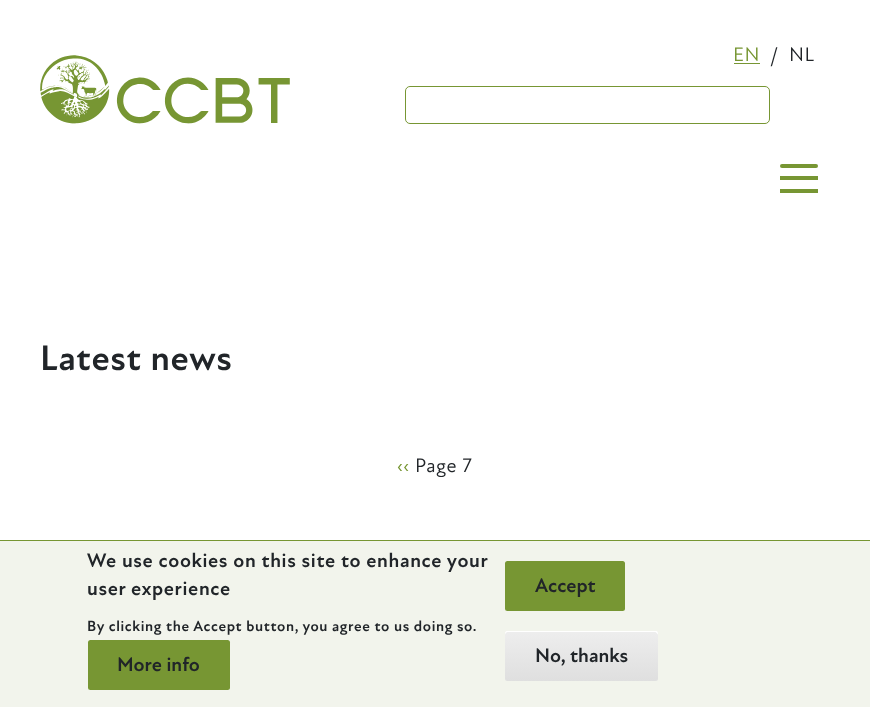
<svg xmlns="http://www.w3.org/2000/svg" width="870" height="707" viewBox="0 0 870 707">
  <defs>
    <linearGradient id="g1" gradientUnits="userSpaceOnUse" x1="581" y1="631" x2="581" y2="681"><stop offset="0.05" stop-color="#ededed"/><stop offset="1" stop-color="#dfdfdf"/></linearGradient>
  </defs>
  <rect width="100%" height="100%" fill="#fff"/>
  <image x="40" y="55" width="250" height="69" href="img/1.png"/>
  <rect x="405.5" y="86.5" width="364" height="37" rx="4.5" fill="none" stroke="#779633"/>
  <path d="M734 63h26v1H734z" fill="#779633"/>
  <rect x="780" y="164" width="38" height="4" rx="2" fill="#779633"/>
  <path d="M780 176h38v4H780z" fill="#779633"/>
  <path d="M780 189h38v4H780z" fill="#779633"/>
  <path d="M0 541h870v166H0z" fill="#f2f4ec"/>
  <path d="M0 540h870v1H0z" fill="#779633"/>
  <rect x="88" y="640" width="142" height="50" rx="2.5" fill="#779633"/>
  <rect x="505" y="561" width="120" height="50" rx="2.5" fill="#779633"/>
  <rect x="505" y="631" width="153" height="50" rx="2.5" fill="url(#g1)"/>
  <path d="M508 632H655C656 632 658 634 658 635C658 633 658 631 656 631H507C505 631 505 633 505 635C505 634 506 632 508 632Z" fill="#fff"/>
  <text x="733" y="61" font-family="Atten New" font-size="20" letter-spacing="0.6" fill="#779633">EN</text>
  <g font-family="Atten New" font-size="20" letter-spacing="0.6" fill="#212529">
    <text x="770" y="61">/</text>
    <text x="789" y="61">NL</text>
  </g>
  <text x="40" y="370" font-family="Atten New" font-size="36" font-weight="bold" letter-spacing="0.6" fill="#212529">Latest news</text>
  <text x="397" y="472" font-family="Atten New" font-size="20" letter-spacing="0.6" fill="#779633">‹‹</text>
  <text x="415" y="472" font-family="Atten New" font-size="20" letter-spacing="0.6" fill="#212529">Page 7</text>
  <g font-family="Atten New" font-size="20" font-weight="bold" letter-spacing="0.6" fill="#212529">
    <text x="87" y="567">We use cookies on this site to enhance your</text>
    <text x="87" y="595">user experience</text>
  </g>
  <text x="87" y="631" font-family="Atten New" font-size="15" font-weight="bold" letter-spacing="0.6" fill="#212529">By clicking the Accept button, you agree to us doing so.</text>
  <g font-family="Atten New" font-size="20" font-weight="bold" fill="#212529">
    <text x="117" y="671">More info</text>
    <text x="535" y="592">Accept</text>
    <text x="535" y="662">No, thanks</text>
  </g>
</svg>
